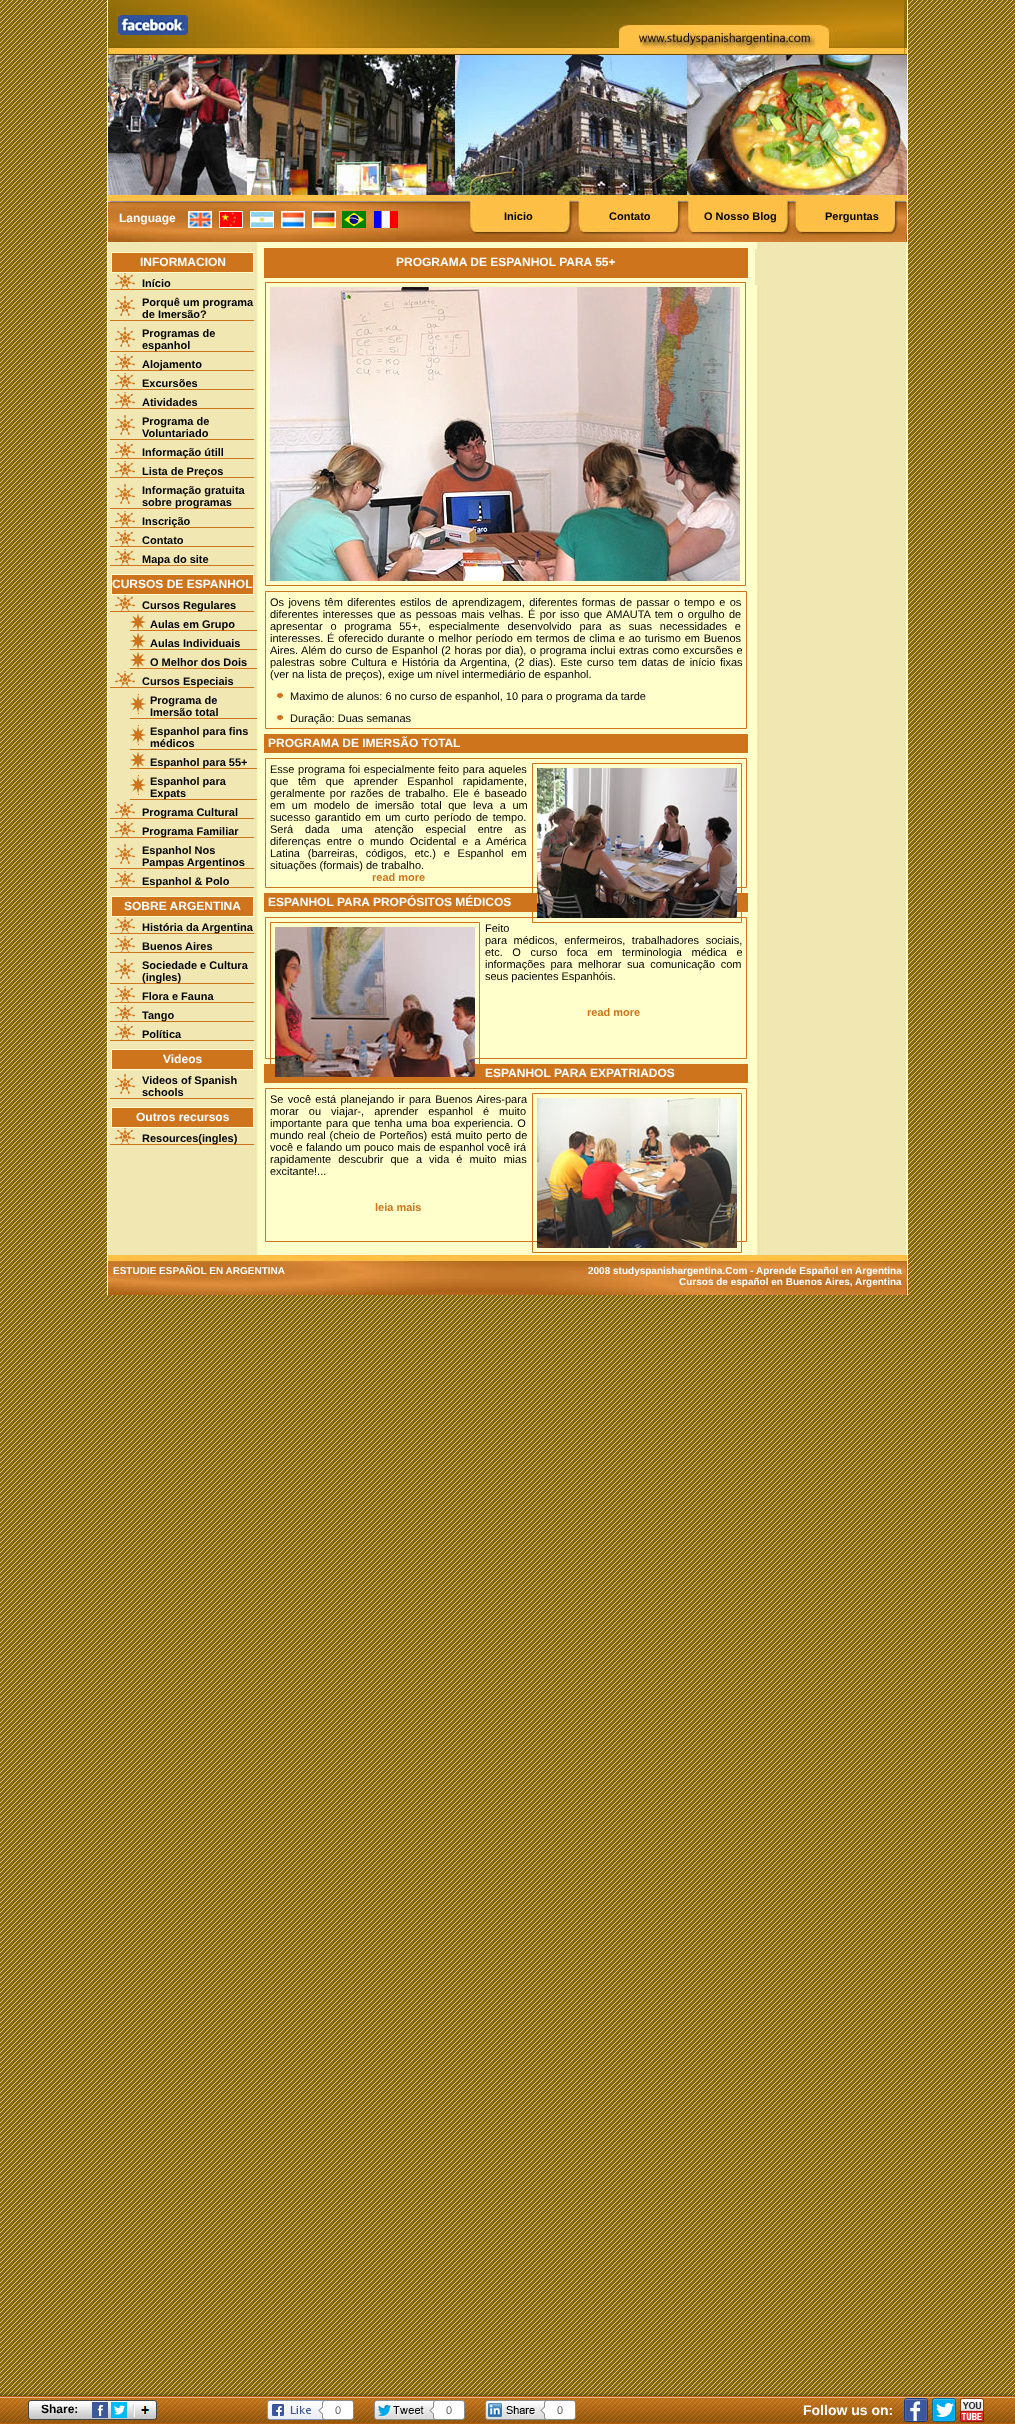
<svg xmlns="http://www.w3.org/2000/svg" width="1015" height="2424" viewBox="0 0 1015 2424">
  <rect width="100%" height="100%" fill="#fff"/>
  <image x="0" y="0" width="1015" height="2423" href="img/1.png"/>
  <path d="M107 0h801v1295H107z" fill="#ffc"/>
  <image x="108" y="0" width="799" height="55" href="img/2.png"/>
  <image x="118" y="15" width="70" height="20" href="img/3.png"/>
  <image x="108" y="55" width="799" height="140" href="img/4.png"/>
  <image x="108" y="195" width="799" height="47" href="img/5.png"/>
  <image x="188" y="211" width="24" height="17" href="img/6.png"/>
  <image x="219" y="211" width="24" height="17" href="img/7.png"/>
  <image x="250" y="211" width="24" height="17" href="img/8.png"/>
  <image x="281" y="211" width="24" height="17" href="img/9.png"/>
  <image x="312" y="211" width="24" height="17" href="img/10.png"/>
  <image x="342" y="211" width="24" height="17" href="img/11.png"/>
  <image x="374" y="211" width="24" height="17" href="img/12.png"/>
  <image x="108" y="242" width="798" height="1013" href="img/13.png"/>
  <path d="M111.5 252.5h142v20H111.5z" fill="#ce741d" stroke="#ffc"/>
  <image x="115" y="273" width="20" height="16" href="img/14.png"/>
  <path d="M110 289h144v1H110z" fill="#ce741d"/>
  <image x="115" y="296" width="20" height="20" href="img/15.png"/>
  <path d="M110 320h144v1H110z" fill="#ce741d"/>
  <image x="115" y="327" width="20" height="20" href="img/15.png"/>
  <path d="M110 351h144v1H110z" fill="#ce741d"/>
  <image x="115" y="354" width="20" height="16" href="img/14.png"/>
  <path d="M110 370h144v1H110z" fill="#ce741d"/>
  <image x="115" y="373" width="20" height="16" href="img/14.png"/>
  <path d="M110 389h144v1H110z" fill="#ce741d"/>
  <image x="115" y="392" width="20" height="16" href="img/14.png"/>
  <path d="M110 408h144v1H110z" fill="#ce741d"/>
  <image x="115" y="415" width="20" height="20" href="img/15.png"/>
  <path d="M110 439h144v1H110z" fill="#ce741d"/>
  <image x="115" y="442" width="20" height="16" href="img/14.png"/>
  <path d="M110 458h144v1H110z" fill="#ce741d"/>
  <image x="115" y="461" width="20" height="16" href="img/14.png"/>
  <path d="M110 477h144v1H110z" fill="#ce741d"/>
  <image x="115" y="484" width="20" height="20" href="img/15.png"/>
  <path d="M110 508h144v1H110z" fill="#ce741d"/>
  <image x="115" y="511" width="20" height="16" href="img/14.png"/>
  <path d="M110 527h144v1H110z" fill="#ce741d"/>
  <image x="115" y="530" width="20" height="16" href="img/14.png"/>
  <path d="M110 546h144v1H110z" fill="#ce741d"/>
  <image x="115" y="549" width="20" height="16" href="img/14.png"/>
  <path d="M110 565h144v1H110z" fill="#ce741d"/>
  <path d="M111.5 574.5h142v20H111.5z" fill="#ce741d" stroke="#ffc"/>
  <image x="115" y="595" width="20" height="16" href="img/14.png"/>
  <path d="M110 611h144v1H110z" fill="#ce741d"/>
  <image x="130" y="614" width="16" height="16" href="img/16.png"/>
  <path d="M130 630h127v1H130z" fill="#ce741d"/>
  <image x="130" y="633" width="16" height="16" href="img/16.png"/>
  <path d="M130 649h127v1H130z" fill="#ce741d"/>
  <image x="130" y="652" width="16" height="16" href="img/16.png"/>
  <path d="M130 668h127v1H130z" fill="#ce741d"/>
  <image x="115" y="671" width="20" height="16" href="img/14.png"/>
  <path d="M110 687h144v1H110z" fill="#ce741d"/>
  <image x="130" y="694" width="16" height="20" href="img/17.png"/>
  <path d="M130 718h127v1H130z" fill="#ce741d"/>
  <image x="130" y="725" width="16" height="20" href="img/17.png"/>
  <path d="M130 749h127v1H130z" fill="#ce741d"/>
  <image x="130" y="752" width="16" height="16" href="img/16.png"/>
  <path d="M130 768h127v1H130z" fill="#ce741d"/>
  <image x="130" y="775" width="16" height="20" href="img/17.png"/>
  <path d="M130 799h127v1H130z" fill="#ce741d"/>
  <image x="115" y="802" width="20" height="16" href="img/14.png"/>
  <path d="M110 818h144v1H110z" fill="#ce741d"/>
  <image x="115" y="821" width="20" height="16" href="img/14.png"/>
  <path d="M110 837h144v1H110z" fill="#ce741d"/>
  <image x="115" y="844" width="20" height="20" href="img/15.png"/>
  <path d="M110 868h144v1H110z" fill="#ce741d"/>
  <image x="115" y="871" width="20" height="16" href="img/14.png"/>
  <path d="M110 887h144v1H110z" fill="#ce741d"/>
  <path d="M111.5 896.5h142v20H111.5z" fill="#ce741d" stroke="#ffc"/>
  <image x="115" y="917" width="20" height="16" href="img/14.png"/>
  <path d="M110 933h144v1H110z" fill="#ce741d"/>
  <image x="115" y="936" width="20" height="16" href="img/14.png"/>
  <path d="M110 952h144v1H110z" fill="#ce741d"/>
  <image x="115" y="959" width="20" height="20" href="img/15.png"/>
  <path d="M110 983h144v1H110z" fill="#ce741d"/>
  <image x="115" y="986" width="20" height="16" href="img/14.png"/>
  <path d="M110 1002h144v1H110z" fill="#ce741d"/>
  <image x="115" y="1005" width="20" height="16" href="img/14.png"/>
  <path d="M110 1021h144v1H110z" fill="#ce741d"/>
  <image x="115" y="1024" width="20" height="16" href="img/14.png"/>
  <path d="M110 1040h144v1H110z" fill="#ce741d"/>
  <path d="M111.5 1049.5h142v20H111.5z" fill="#ce741d" stroke="#ffc"/>
  <image x="115" y="1074" width="20" height="20" href="img/15.png"/>
  <path d="M110 1098h144v1H110z" fill="#ce741d"/>
  <path d="M111.5 1107.5h142v20H111.5z" fill="#ce741d" stroke="#ffc"/>
  <image x="115" y="1128" width="20" height="16" href="img/14.png"/>
  <path d="M110 1144h144v1H110z" fill="#ce741d"/>
  <path d="M264 248h484v30H264z" fill="#ce741d"/>
  <path d="M265.5 282.5h480v303H265.5z" fill="none" stroke="#ce741d"/>
  <image x="270" y="287" width="470" height="294" href="img/18.png"/>
  <path d="M265.5 591.5h481v137H265.5z" fill="none" stroke="#ce741d"/>
  <image x="275" y="691" width="8" height="8" href="img/19.png"/>
  <image x="275" y="713" width="8" height="8" href="img/19.png"/>
  <path d="M264 734h484v19H264z" fill="#ce741d"/>
  <path d="M265.5 758.5h481v129H265.5z" fill="none" stroke="#ce741d"/>
  <path d="M264 893h484v19H264z" fill="#ce741d"/>
  <path d="M265.5 917.5h481v141H265.5z" fill="none" stroke="#ce741d"/>
  <path d="M532.5 763.5h209v159H532.5z" fill="none" stroke="#ce741d"/>
  <image x="537" y="768" width="200" height="150" href="img/20.png"/>
  <path d="M264 1064h484v19H264z" fill="#ce741d"/>
  <path d="M270.5 922.5h209v159H270.5z" fill="none" stroke="#ce741d"/>
  <image x="275" y="927" width="200" height="150" href="img/21.png"/>
  <path d="M265.5 1088.5h481v153H265.5z" fill="none" stroke="#ce741d"/>
  <path d="M532.5 1093.5h209v159H532.5z" fill="none" stroke="#ce741d"/>
  <image x="537" y="1098" width="200" height="150" href="img/22.png"/>
  <path d="M755 249h8v36H755z" fill="#f1e7b2"/>
  <image x="108" y="1255" width="799" height="40" href="img/23.png"/>
  <image x="0" y="2392" width="1015" height="32" href="img/24.png"/>
  <image x="28" y="2400" width="129" height="20" href="img/25.png"/>
  <image x="92" y="2402" width="16" height="16" href="img/26.png"/>
  <image x="111" y="2402" width="16" height="16" href="img/27.png"/>
  <image x="267" y="2400" width="87" height="20" href="img/28.png"/>
  <image x="374" y="2400" width="91" height="20" href="img/29.png"/>
  <image x="485" y="2400" width="91" height="20" href="img/30.png"/>
  <image x="904" y="2398" width="24" height="24" href="img/31.png"/>
  <image x="932" y="2398" width="24" height="24" href="img/32.png"/>
  <image x="960" y="2398" width="24" height="24" href="img/33.png"/>
  <text x="119" y="222" font-family="Liberation Sans" font-size="12" font-weight="bold" fill="#fff">Language</text>
  <g font-family="Liberation Sans" font-size="11" font-weight="bold" fill="#000">
    <text x="504" y="220">Inicio</text>
    <text x="609" y="220">Contato</text>
    <text x="704" y="220">O Nosso Blog</text>
    <text x="825" y="220">Perguntas</text>
  </g>
  <text x="140" y="266" font-family="Liberation Sans" font-size="12" font-weight="bold" fill="#fff">INFORMACION</text>
  <g font-family="Liberation Sans" font-size="11" font-weight="bold" fill="#000">
    <text x="142" y="287">Início</text>
    <text x="142" y="306">Porquê um programa</text>
    <text x="142" y="318">de Imersão?</text>
    <text x="142" y="337">Programas de</text>
    <text x="142" y="349">espanhol</text>
    <text x="142" y="368">Alojamento</text>
    <text x="142" y="387">Excursões</text>
    <text x="142" y="406">Atividades</text>
    <text x="142" y="425">Programa de</text>
    <text x="142" y="437">Voluntariado</text>
    <text x="142" y="456">Informação útill</text>
    <text x="142" y="475">Lista de Preços</text>
    <text x="142" y="494">Informação gratuita</text>
    <text x="142" y="506">sobre programas</text>
    <text x="142" y="525">Inscrição</text>
    <text x="142" y="544">Contato</text>
    <text x="142" y="563">Mapa do site</text>
  </g>
  <text x="112" y="588" font-family="Liberation Sans" font-size="12" font-weight="bold" fill="#fff">CURSOS DE ESPANHOL</text>
  <g font-family="Liberation Sans" font-size="11" font-weight="bold" fill="#000">
    <text x="142" y="609">Cursos Regulares</text>
    <text x="150" y="628">Aulas em Grupo</text>
    <text x="150" y="647">Aulas Individuais</text>
    <text x="150" y="666">O Melhor dos Dois</text>
    <text x="142" y="685">Cursos Especiais</text>
    <text x="150" y="704">Programa de</text>
    <text x="150" y="716">Imersão total</text>
    <text x="150" y="735">Espanhol para fins</text>
    <text x="150" y="747">médicos</text>
    <text x="150" y="766">Espanhol para 55+</text>
    <text x="150" y="785">Espanhol para</text>
    <text x="150" y="797">Expats</text>
    <text x="142" y="816">Programa Cultural</text>
    <text x="142" y="835">Programa Familiar</text>
    <text x="142" y="854">Espanhol Nos</text>
    <text x="142" y="866">Pampas Argentinos</text>
    <text x="142" y="885">Espanhol &amp; Polo</text>
  </g>
  <text x="124" y="910" font-family="Liberation Sans" font-size="12" font-weight="bold" fill="#fff">SOBRE ARGENTINA</text>
  <g font-family="Liberation Sans" font-size="11" font-weight="bold" fill="#000">
    <text x="142" y="931">História da Argentina</text>
    <text x="142" y="950">Buenos Aires</text>
    <text x="142" y="969">Sociedade e Cultura</text>
    <text x="142" y="981">(ingles)</text>
    <text x="142" y="1000">Flora e Fauna</text>
    <text x="142" y="1019">Tango</text>
    <text x="142" y="1038">Política</text>
  </g>
  <text x="163" y="1063" font-family="Liberation Sans" font-size="12" font-weight="bold" fill="#fff">Videos</text>
  <g font-family="Liberation Sans" font-size="11" font-weight="bold" fill="#000">
    <text x="142" y="1084">Videos of Spanish</text>
    <text x="142" y="1096">schools</text>
  </g>
  <text x="136" y="1121" font-family="Liberation Sans" font-size="12" font-weight="bold" fill="#fff">Outros recursos</text>
  <text x="142" y="1142" font-family="Liberation Sans" font-size="11" font-weight="bold" fill="#000">Resources(ingles)</text>
  <text x="396" y="266" font-family="Liberation Sans" font-size="12" font-weight="bold" fill="#fff">PROGRAMA DE ESPANHOL PARA 55+</text>
  <g font-family="Liberation Sans" font-size="11" fill="#000">
    <text x="270" y="606" word-spacing="1.3">Os jovens têm diferentes estilos de aprendizagem, diferentes formas de passar o tempo e os</text>
    <text x="270" y="618" word-spacing="1.3">diferentes interesses que as pessoas mais velhas. É por isso que AMAUTA tem o orgulho de</text>
    <text x="270" y="630" word-spacing="4.75">apresentar o programa 55+, especialmente desenvolvido para as suas necessidades e</text>
    <text x="270" y="642" word-spacing="0.75">interesses. É oferecido durante o melhor período em termos de clima e ao turismo em Buenos</text>
    <text x="270" y="654" word-spacing="0.5">Aires. Além do curso de Espanhol (2 horas por dia), o programa inclui extras como excursões e</text>
    <text x="270" y="666" word-spacing="1.5">palestras sobre Cultura e História da Argentina, (2 dias). Este curso tem datas de início fixas</text>
    <text x="270" y="678">(ver na lista de preços), exige um nível intermediário de espanhol.</text>
    <text x="290" y="700">Maximo de alunos: 6 no curso de espanhol, 10 para o programa da tarde</text>
    <text x="290" y="722">Duração: Duas semanas</text>
  </g>
  <text x="268" y="747" font-family="Liberation Sans" font-size="12" font-weight="bold" fill="#fff">PROGRAMA DE IMERSÃO TOTAL</text>
  <g font-family="Liberation Sans" font-size="11" fill="#000">
    <text x="270" y="773" word-spacing="0.5">Esse programa foi especialmente feito para aqueles</text>
    <text x="270" y="785" word-spacing="6.5">que têm que aprender Espanhol rapidamente,</text>
    <text x="270" y="797" word-spacing="1.75">geralmente por razões de trabalho. Ele é baseado</text>
    <text x="270" y="809" word-spacing="3.5">em um modelo de imersão total que leva a um</text>
    <text x="270" y="821" word-spacing="1.5">sucesso garantido em um curto período de tempo.</text>
    <text x="270" y="833" word-spacing="8.75">Será dada uma atenção especial entre as</text>
    <text x="270" y="845" word-spacing="3">diferenças entre o mundo Ocidental e a América</text>
    <text x="270" y="857" word-spacing="4.75">Latina (barreiras, códigos, etc.) e Espanhol em</text>
    <text x="270" y="869">situações (formais) de trabalho.</text>
  </g>
  <text x="372" y="881" font-family="Liberation Sans" font-size="11" font-weight="bold" fill="#ce741d">read more</text>
  <text x="268" y="906" font-family="Liberation Sans" font-size="12" font-weight="bold" fill="#fff">ESPANHOL PARA PROPÓSITOS MÉDICOS</text>
  <g font-family="Liberation Sans" font-size="11" fill="#000">
    <text x="485" y="932">Feito</text>
    <text x="485" y="944" word-spacing="3.5">para médicos, enfermeiros, trabalhadores sociais,</text>
    <text x="485" y="956" word-spacing="6.5">etc. O curso foca em terminologia médica e</text>
    <text x="485" y="968" word-spacing="2.5">informações para melhorar sua comunicação com</text>
    <text x="485" y="980">seus pacientes Espanhóis.</text>
  </g>
  <text x="587" y="1016" font-family="Liberation Sans" font-size="11" font-weight="bold" fill="#ce741d">read more</text>
  <text x="485" y="1077" font-family="Liberation Sans" font-size="12" font-weight="bold" fill="#fff">ESPANHOL PARA EXPATRIADOS</text>
  <g font-family="Liberation Sans" font-size="11" fill="#000">
    <text x="270" y="1103" word-spacing="1.25">Se você está planejando ir para Buenos Aires-para</text>
    <text x="270" y="1115" word-spacing="7">morar ou viajar-, aprender espanhol é muito</text>
    <text x="270" y="1127" word-spacing="1">importante para que tenha uma boa experiencia. O</text>
    <text x="270" y="1139" word-spacing="0.75">mundo real (cheio de Porteños) está muito perto de</text>
    <text x="270" y="1151" word-spacing="0.25">você e falando um pouco mais de espanhol você irá</text>
    <text x="270" y="1163" word-spacing="4">rapidamente descubrir que a vida é muito mias</text>
    <text x="270" y="1175">excitante!...</text>
  </g>
  <text x="375" y="1211" font-family="Liberation Sans" font-size="11" font-weight="bold" fill="#ce741d">leia mais</text>
  <g font-family="Liberation Sans" font-size="10" font-weight="bold" fill="#fff">
    <text x="113" y="1274">ESTUDIE ESPAÑOL EN ARGENTINA</text>
    <text x="588" y="1274">2008 studyspanishargentina.Com -</text>
    <text x="756" y="1274">Aprende Español en Argentina</text>
    <text x="679" y="1285">Cursos de español en Buenos Aires, Argentina</text>
  </g>
  <text x="41" y="2413" font-family="Liberation Sans" font-size="12" font-weight="bold" fill="#000">Share:</text>
  <g font-family="Liberation Sans" font-size="11" fill="#666">
    <text x="335" y="2414">0</text>
    <text x="446" y="2414">0</text>
    <text x="557" y="2414">0</text>
  </g>
  <text x="803" y="2415" font-family="Liberation Sans" font-size="14" font-weight="bold" fill="#fff">Follow us on:</text>
</svg>
